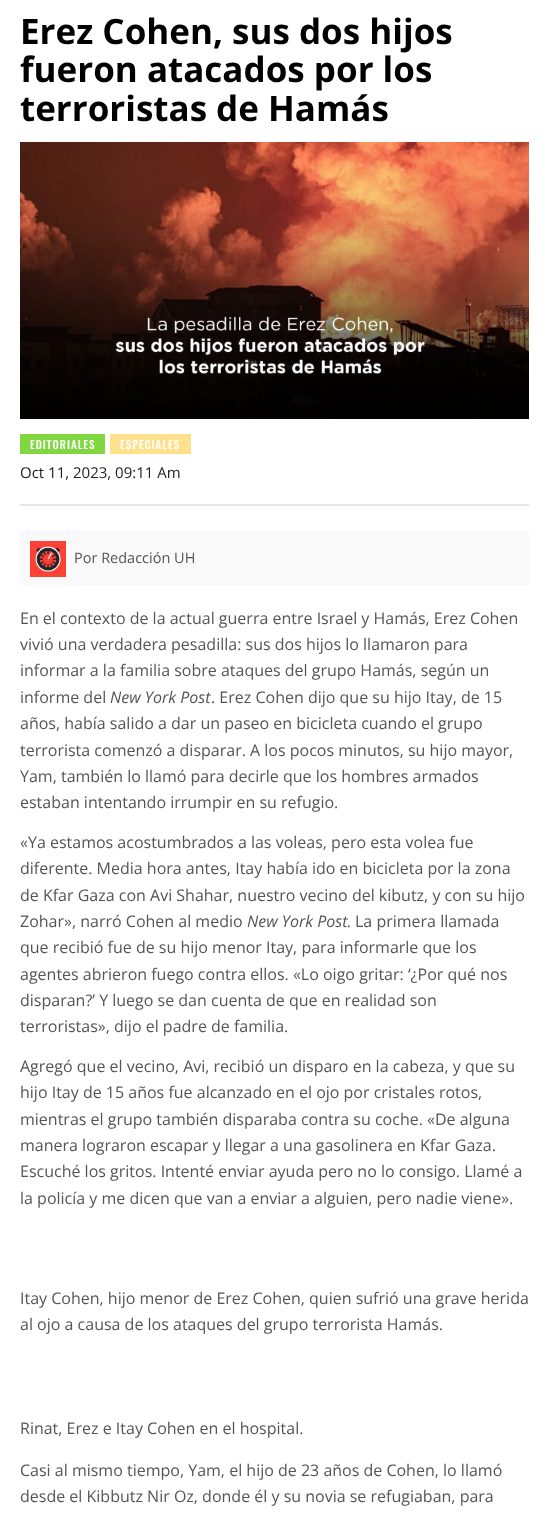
<svg xmlns="http://www.w3.org/2000/svg" width="549" height="1521" viewBox="0 0 549 1521">
  <rect width="100%" height="100%" fill="#fff"/>
  <image x="20" y="142" width="509" height="277" href="img/1.png"/>
  <path d="M20 504h509v2H20z" fill="#e6e6e6"/>
  <path d="M20 434h85v20H20z" fill="#81d742"/>
  <path d="M110 434h81v20H110z" fill="#ffe08c"/>
  <path d="M20 531h509v54H20z" fill="#f9f9f9"/>
  <image x="30" y="541" width="36" height="36" href="img/2.png"/>
  <g font-family="Open Sans" font-size="35" font-weight="bold" fill="#000">
    <text x="20" y="44">Erez Cohen, sus dos hijos</text>
    <text x="20" y="82">fueron atacados por los</text>
    <text x="20" y="121">terroristas de Hamás</text>
  </g>
  <g font-family="Oswald" font-size="11" font-weight="500" letter-spacing="1" fill="#fff">
    <text x="30" y="449">EDITORIALES</text>
    <text x="120" y="449">ESPECIALES</text>
  </g>
  <text x="20" y="478" font-family="Open Sans" font-size="15" fill="#222">Oct 11, 2023, 09:11 Am</text>
  <text x="74" y="563" font-family="Open Sans" font-size="14.5" fill="#555">Por Redacción UH</text>
  <g font-family="Open Sans" font-size="16" fill="#555">
    <text x="20" y="624">En el contexto de la actual guerra entre Israel y Hamás, Erez Cohen</text>
    <text x="20" y="650">vivió una verdadera pesadilla: sus dos hijos lo llamaron para</text>
    <text x="20" y="676">informar a la familia sobre ataques del grupo Hamás, según un</text>
    <text x="20" y="703">informe del</text>
  </g>
  <text x="110" y="703" font-family="Open Sans" font-size="16" font-style="italic" fill="#555">New York Post</text>
  <g font-family="Open Sans" font-size="16" fill="#555">
    <text x="211" y="703">. Erez Cohen dijo que su hijo Itay, de 15</text>
    <text x="20" y="729">años, había salido a dar un paseo en bicicleta cuando el grupo</text>
    <text x="20" y="756">terrorista comenzó a disparar. A los pocos minutos, su hijo mayor,</text>
    <text x="20" y="782">Yam, también lo llamó para decirle que los hombres armados</text>
    <text x="20" y="808">estaban intentando irrumpir en su refugio.</text>
    <text x="20" y="848">«Ya estamos acostumbrados a las voleas, pero esta volea fue</text>
    <text x="20" y="874">diferente. Media hora antes, Itay había ido en bicicleta por la zona</text>
    <text x="20" y="901">de Kfar Gaza con Avi Shahar, nuestro vecino del kibutz, y con su hijo</text>
    <text x="20" y="927">Zohar», narró Cohen al medio</text>
  </g>
  <text x="247" y="927" font-family="Open Sans" font-size="16" font-style="italic" fill="#555">New York Post.</text>
  <g font-family="Open Sans" font-size="16" fill="#555">
    <text x="355" y="927">La primera llamada</text>
    <text x="20" y="953">que recibió fue de su hijo menor Itay, para informarle que los</text>
    <text x="20" y="980">agentes abrieron fuego contra ellos. «Lo oigo gritar: ‘¿Por qué nos</text>
    <text x="20" y="1006">disparan?’ Y luego se dan cuenta de que en realidad son</text>
    <text x="20" y="1032">terroristas», dijo el padre de familia.</text>
    <text x="20" y="1072">Agregó que el vecino, Avi, recibió un disparo en la cabeza, y que su</text>
    <text x="20" y="1098">hijo Itay de 15 años fue alcanzado en el ojo por cristales rotos,</text>
    <text x="20" y="1125">mientras el grupo también disparaba contra su coche. «De alguna</text>
    <text x="20" y="1151">manera lograron escapar y llegar a una gasolinera en Kfar Gaza.</text>
    <text x="20" y="1177">Escuché los gritos. Intenté enviar ayuda pero no lo consigo. Llamé a</text>
    <text x="20" y="1204">la policía y me dicen que van a enviar a alguien, pero nadie viene».</text>
    <text x="20" y="1304">Itay Cohen, hijo menor de Erez Cohen, quien sufrió una grave herida</text>
    <text x="20" y="1330">al ojo a causa de los ataques del grupo terrorista Hamás.</text>
    <text x="20" y="1434">Rinat, Erez e Itay Cohen en el hospital.</text>
    <text x="20" y="1476">Casi al mismo tiempo, Yam, el hijo de 23 años de Cohen, lo llamó</text>
    <text x="20" y="1502">desde el Kibbutz Nir Oz, donde él y su novia se refugiaban, para</text>
  </g>
</svg>
